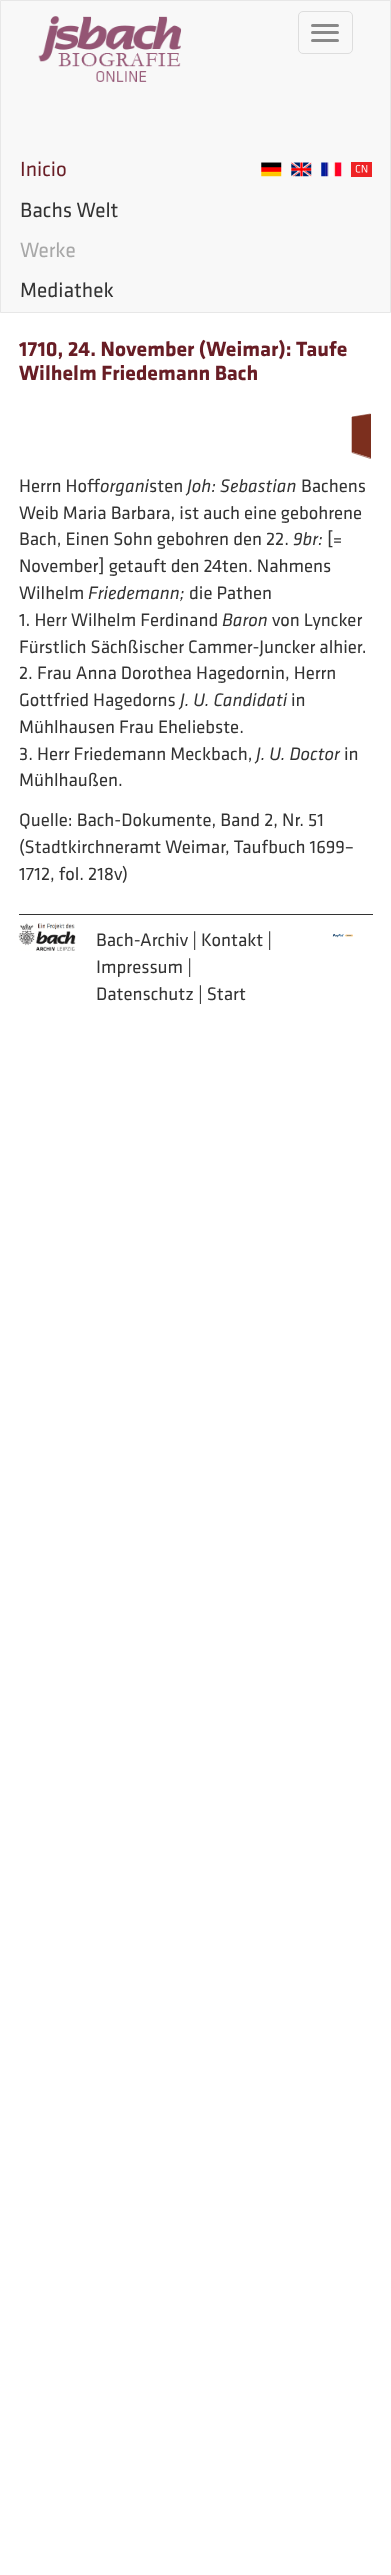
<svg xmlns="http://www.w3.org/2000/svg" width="391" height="2575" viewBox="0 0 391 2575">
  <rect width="100%" height="100%" fill="#fff"/>
  <path d="M0.5 0.5h390v312H0.5z" fill="#f8f8f8" stroke="#e7e7e7"/>
  <image x="38" y="16" width="144" height="66" href="img/1.png"/>
  <rect x="298.5" y="11.5" width="54" height="42" rx="4.5" fill="none" stroke="#ddd"/>
  <rect x="311" y="24" width="28" height="3" rx="1.5" fill="#888"/>
  <rect x="311" y="31" width="28" height="3" rx="1.5" fill="#888"/>
  <rect x="311" y="39" width="28" height="3" rx="1.5" fill="#888"/>
  <image x="261" y="162" width="21" height="15" href="img/2.png"/>
  <image x="291" y="162" width="21" height="15" href="img/3.png"/>
  <image x="321" y="162" width="21" height="15" href="img/4.png"/>
  <path d="M351 162h21v15H351z" fill="#ee2325"/>
  <image x="355" y="164" width="13" height="9" href="img/5.png"/>
  <path d="M371 414L352 417V452L371 458Z" fill="#7c2f1e"/>
  <path d="M370.5 414L352 417V452.5L370.5 458.5Z" fill="none" stroke="#7c2f1e" stroke-width="0.6"/>
  <path d="M19 914h354v1H19z" fill="#333"/>
  <image x="18" y="923" width="58" height="28" href="img/6.png"/>
  <image x="332" y="933" width="21" height="5" href="img/7.png"/>
  <text x="20" y="176" font-family="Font" font-size="21.25" fill="#681d25">Inicio</text>
  <text x="20" y="217" font-family="Font" font-size="21.25" fill="#333">Bachs Welt</text>
  <text x="20" y="257" font-family="Font" font-size="21.25" fill="#a8a8a8">Werke</text>
  <text x="20" y="297" font-family="Font" font-size="21.25" fill="#333">Mediathek</text>
  <g font-family="Font" font-size="21.25" font-weight="bold" fill="#681d25">
    <text x="19" y="356">1710, 24. November (Weimar): Taufe</text>
    <text x="19" y="380">Wilhelm Friedemann Bach</text>
  </g>
  <text x="19" y="492" font-family="Font" font-size="18.75" fill="#333">Herrn Hoff</text>
  <text x="100" y="492" font-family="Font" font-size="18.75" font-style="italic" fill="#333">organi</text>
  <text x="149" y="492" font-family="Font" font-size="18.75" fill="#333">sten</text>
  <text x="187" y="492" font-family="Font" font-size="18.75" font-style="italic" fill="#333">Joh: Sebastian</text>
  <g font-family="Font" font-size="18.75" fill="#333">
    <text x="301" y="492">Bachens</text>
    <text x="19" y="519">Weib Maria Barbara, ist auch eine gebohrene</text>
    <text x="19" y="545">Bach, Einen Sohn gebohren den 22.</text>
  </g>
  <text x="293" y="545" font-family="Font" font-size="18.75" font-style="italic" fill="#333">9br:</text>
  <g font-family="Font" font-size="18.75" fill="#333">
    <text x="327" y="545">[=</text>
    <text x="19" y="572">November] getauft den 24ten. Nahmens</text>
    <text x="19" y="599">Wilhelm</text>
  </g>
  <text x="88" y="599" font-family="Font" font-size="18.75" font-style="italic" fill="#333">Friedemann;</text>
  <g font-family="Font" font-size="18.75" fill="#333">
    <text x="189" y="599">die Pathen</text>
    <text x="19" y="626">1. Herr Wilhelm Ferdinand</text>
  </g>
  <text x="222" y="626" font-family="Font" font-size="18.75" font-style="italic" fill="#333">Baron</text>
  <g font-family="Font" font-size="18.75" fill="#333">
    <text x="272" y="626">von Lyncker</text>
    <text x="19" y="653">Fürstlich Sächßischer Cammer-Juncker alhier.</text>
    <text x="19" y="679">2. Frau Anna Dorothea Hagedornin, Herrn</text>
    <text x="19" y="706">Gottfried Hagedorns</text>
  </g>
  <text x="180" y="706" font-family="Font" font-size="18.75" font-style="italic" fill="#333">J. U. Candidati</text>
  <g font-family="Font" font-size="18.75" fill="#333">
    <text x="291" y="706">in</text>
    <text x="19" y="733">Mühlhausen Frau Eheliebste.</text>
    <text x="19" y="760">3. Herr Friedemann Meckbach,</text>
  </g>
  <text x="256" y="760" font-family="Font" font-size="18.75" font-style="italic" fill="#333">J. U. Doctor</text>
  <g font-family="Font" font-size="18.75" fill="#333">
    <text x="344" y="760">in</text>
    <text x="19" y="786">Mühlhaußen.</text>
    <text x="19" y="826">Quelle: Bach-Dokumente, Band 2, Nr. 51</text>
    <text x="19" y="853">(Stadtkirchneramt Weimar, Taufbuch 1699–</text>
    <text x="19" y="880">1712, fol. 218v)</text>
    <text x="96" y="946">Bach-Archiv | Kontakt |</text>
    <text x="96" y="973">Impressum |</text>
    <text x="96" y="1000">Datenschutz | Start</text>
  </g>
</svg>
